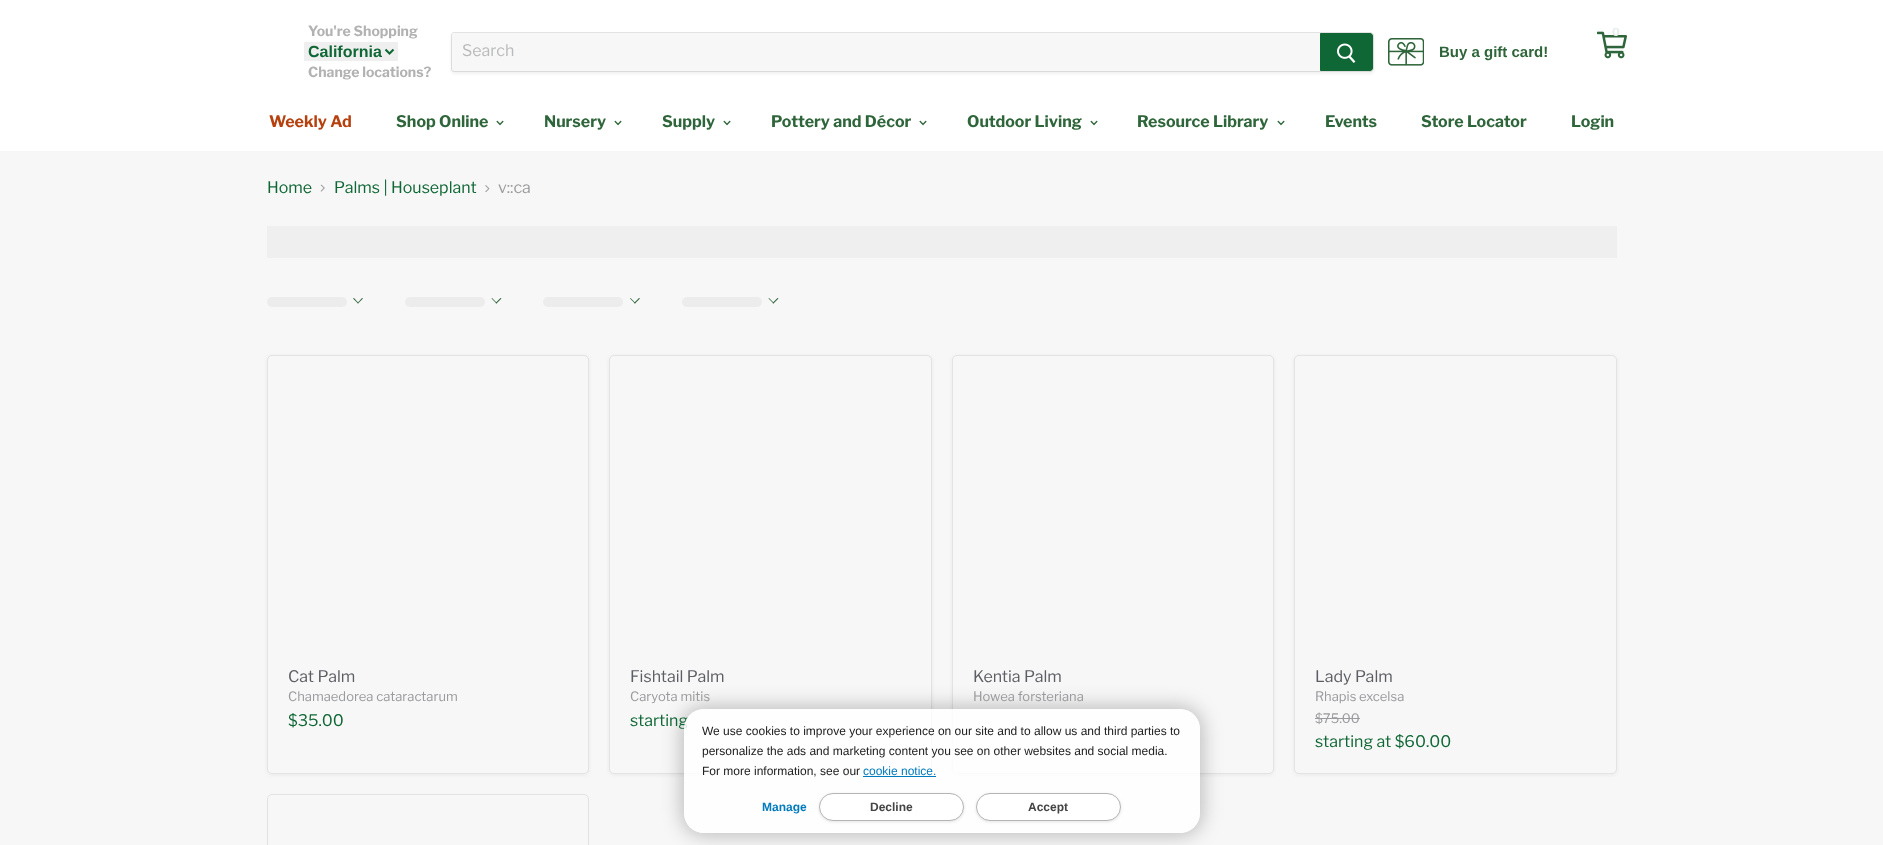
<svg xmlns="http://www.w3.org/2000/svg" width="1883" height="845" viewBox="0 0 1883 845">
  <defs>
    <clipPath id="clip1"><path d="M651 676H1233V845H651ZM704 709H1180C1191 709 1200 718 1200 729V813C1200 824 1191 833 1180 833H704C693 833 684 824 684 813V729C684 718 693 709 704 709Z" clip-rule="evenodd"/></clipPath>
  </defs>
  <rect width="100%" height="100%" fill="#f7f7f7"/>
  <path d="M0 0h1883v151H0z" fill="#fff"/>
  <path d="M304 42h94v19H304z" fill="#efefef"/>
  <path d="M385.5 49.5L389.5 53.5L393.5 49.5" fill="none" stroke="#0f6735" stroke-width="2"/>
  <rect x="451" y="34" width="923" height="40" rx="4" fill="#7b7b7b1c" filter="blur(1.5px)"/>
  <path d="M454 32.5H1370C1372 32.5 1373.5 34 1373.5 36V68C1373.5 70 1372 71.5 1370 71.5H454C452.5 71.5 451.5 70.5 451.5 69V35C451.5 33.5 452.5 32.5 454 32.5Z" fill="none" stroke="#7b7b7b33"/>
  <path d="M455 33H1320V71H455C453.5 71 452 69.5 452 68V36C452 34.5 453.5 33 455 33Z" fill="#f7f7f7"/>
  <path d="M1320.5 33.5H1370C1371.5 33.5 1372.5 34.5 1372.5 36V68C1372.5 69.5 1371.5 70.5 1370 70.5H1320.5Z" fill="#0f6735" stroke="#0f6735"/>
  <image x="1337" y="43" width="19" height="20" href="img/1.png"/>
  <image x="1388" y="38" width="36" height="28" href="img/2.png"/>
  <image x="1597" y="31" width="30" height="28" href="img/3.png"/>
  <image x="496" y="120" width="8" height="6" href="img/4.png"/>
  <image x="614" y="120" width="8" height="6" href="img/4.png"/>
  <image x="723" y="120" width="8" height="6" href="img/4.png"/>
  <image x="919" y="120" width="8" height="6" href="img/4.png"/>
  <image x="1090" y="120" width="8" height="6" href="img/4.png"/>
  <image x="1277" y="120" width="8" height="6" href="img/4.png"/>
  <image x="320" y="184" width="5" height="8" href="img/5.png"/>
  <image x="485" y="185" width="5" height="7" href="img/6.png"/>
  <path d="M267 226h1350v32H267z" fill="#efefef"/>
  <rect x="267" y="297" width="80" height="10" rx="5" fill="#ececec"/>
  <path d="M362 298L363 298.5L358 303.5L357.5 303Z" fill="#2f653a"/>
  <path d="M354 298L358.5 303L358 303.5L353 298.5Z" fill="#2f653a"/>
  <rect x="405" y="297" width="80" height="10" rx="5" fill="#ececec"/>
  <path d="M500.5 298L501.5 298.5L496.5 303.5L495.5 303Z" fill="#2f653a"/>
  <path d="M492 298L497 303L496.5 303.5L491.5 298.5Z" fill="#2f653a"/>
  <rect x="543" y="297" width="80" height="10" rx="5" fill="#ececec"/>
  <path d="M639 298L640 298.5L635 303.5L634 303Z" fill="#2f653a"/>
  <path d="M630.5 298L635.5 303L635 303.5L630 298.5Z" fill="#2f653a"/>
  <rect x="682" y="297" width="80" height="10" rx="5" fill="#ececec"/>
  <path d="M777.5 298L778.5 298.5L773.5 303.5L772.5 303Z" fill="#2f653a"/>
  <path d="M769 298L774 303L773.5 303.5L768.5 298.5Z" fill="#2f653a"/>
  <rect x="267" y="356" width="322" height="419" rx="5" fill="#7b7b7b1c" filter="blur(2px)"/>
  <rect x="267.5" y="355.5" width="321" height="418" rx="4.5" fill="#f7f7f7" stroke="#e3e3e3"/>
  <rect x="609" y="356" width="323" height="419" rx="5" fill="#7b7b7b1c" filter="blur(2px)"/>
  <rect x="609.5" y="355.5" width="322" height="418" rx="4.5" fill="#f7f7f7" stroke="#e3e3e3"/>
  <rect x="952" y="356" width="322" height="419" rx="5" fill="#7b7b7b1c" filter="blur(2px)"/>
  <rect x="952.5" y="355.5" width="321" height="418" rx="4.5" fill="#f7f7f7" stroke="#e3e3e3"/>
  <rect x="1294" y="356" width="323" height="419" rx="5" fill="#7b7b7b1c" filter="blur(2px)"/>
  <rect x="1294.5" y="355.5" width="322" height="418" rx="4.5" fill="#f7f7f7" stroke="#e3e3e3"/>
  <path d="M1315 718h45v1H1315z" fill="#9a9b9e"/>
  <rect x="267.5" y="794.5" width="321" height="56" rx="4.5" fill="none" stroke="#e3e3e3"/>
  <g clip-path="url(#clip1)">
    <rect x="682" y="707" width="520" height="128" rx="22" fill="#00000040" filter="blur(10px)"/>
  </g>
  <text x="308" y="36" font-family="Libre Franklin" font-size="14" font-weight="bold" fill="#b2b2b2">You're Shopping</text>
  <text x="308" y="57" font-family="Liberation Sans" font-size="16" font-weight="bold" fill="#0f6735">California</text>
  <text x="308" y="77" font-family="Libre Franklin" font-size="14" font-weight="bold" fill="#b2b2b2">Change locations?</text>
  <text x="462" y="56" font-family="Libre Franklin" font-size="16" fill="#b9babc">Search</text>
  <text x="1439" y="57" font-family="Liberation Sans" font-size="15" font-weight="bold" fill="#2f653a">Buy a gift card!</text>
  <text x="1612" y="36" font-family="Libre Franklin" font-size="11" font-weight="bold" fill="#e7ede8">0</text>
  <text x="269" y="127" font-family="Libre Franklin" font-size="16" font-weight="bold" fill="#b7410e">Weekly Ad</text>
  <g font-family="Libre Franklin" font-size="16" font-weight="bold" fill="#2f653a">
    <text x="396" y="127">Shop Online</text>
    <text x="544" y="127">Nursery</text>
    <text x="662" y="127">Supply</text>
    <text x="771" y="127">Pottery and Décor</text>
    <text x="967" y="127">Outdoor Living</text>
    <text x="1137" y="127">Resource Library</text>
    <text x="1325" y="127">Events</text>
    <text x="1421" y="127">Store Locator</text>
    <text x="1571" y="127">Login</text>
  </g>
  <g font-family="Libre Franklin" font-size="16" fill="#0f6735">
    <text x="267" y="193">Home</text>
    <text x="334" y="193">Palms | Houseplant</text>
  </g>
  <text x="498" y="193" font-family="Libre Franklin" font-size="16" fill="#9a9b9e">v::ca</text>
  <text x="288" y="682" font-family="Libre Franklin" font-size="16" fill="#5c5e63">Cat Palm</text>
  <text x="288" y="701" font-family="Libre Franklin" font-size="13" fill="#9a9b9e">Chamaedorea cataractarum</text>
  <text x="288" y="726" font-family="Libre Franklin" font-size="16" fill="#0f6735">$35.00</text>
  <text x="630" y="682" font-family="Libre Franklin" font-size="16" fill="#5c5e63">Fishtail Palm</text>
  <text x="630" y="701" font-family="Libre Franklin" font-size="13" fill="#9a9b9e">Caryota mitis</text>
  <text x="630" y="726" font-family="Libre Franklin" font-size="16" fill="#0f6735">starting</text>
  <text x="973" y="682" font-family="Libre Franklin" font-size="16" fill="#5c5e63">Kentia Palm</text>
  <text x="973" y="701" font-family="Libre Franklin" font-size="13" fill="#9a9b9e">Howea forsteriana</text>
  <text x="1315" y="682" font-family="Libre Franklin" font-size="16" fill="#5c5e63">Lady Palm</text>
  <g font-family="Libre Franklin" font-size="13" fill="#9a9b9e">
    <text x="1315" y="701">Rhapis excelsa</text>
    <text x="1315" y="723">$75.00</text>
  </g>
  <text x="1315" y="747" font-family="Libre Franklin" font-size="16" fill="#0f6735">starting at $60.00</text>
  <rect x="684" y="709" width="516" height="124" rx="20" fill="#ffffffd9"/>
  <g font-family="Liberation Sans" font-size="12" fill="#212121">
    <text x="702" y="735">We use cookies to improve your experience on our site and to allow us and third parties to</text>
    <text x="702" y="755">personalize the ads and marketing content you see on other websites and social media.</text>
    <text x="702" y="775">For more information, see our</text>
  </g>
  <text x="863" y="775" font-family="Liberation Sans" font-size="12" fill="#007bbd">cookie notice.</text>
  <path d="M863 776h73v1H863z" fill="#007bbd"/>
  <text x="762" y="811" font-family="Liberation Sans" font-size="12" font-weight="bold" fill="#007bbd">Manage</text>
  <rect x="819" y="794" width="145" height="28" rx="14" fill="#0000001a" filter="blur(1.5px)"/>
  <rect x="819.5" y="793.5" width="144" height="27" rx="13.5" fill="#fff" stroke="#b4b4b4"/>
  <text x="870" y="811" font-family="Liberation Sans" font-size="12" font-weight="bold" fill="#444">Decline</text>
  <rect x="976" y="794" width="145" height="28" rx="14" fill="#0000001a" filter="blur(1.5px)"/>
  <rect x="976.5" y="793.5" width="144" height="27" rx="13.5" fill="#fff" stroke="#b4b4b4"/>
  <text x="1028" y="811" font-family="Liberation Sans" font-size="12" font-weight="bold" fill="#444">Accept</text>
</svg>
